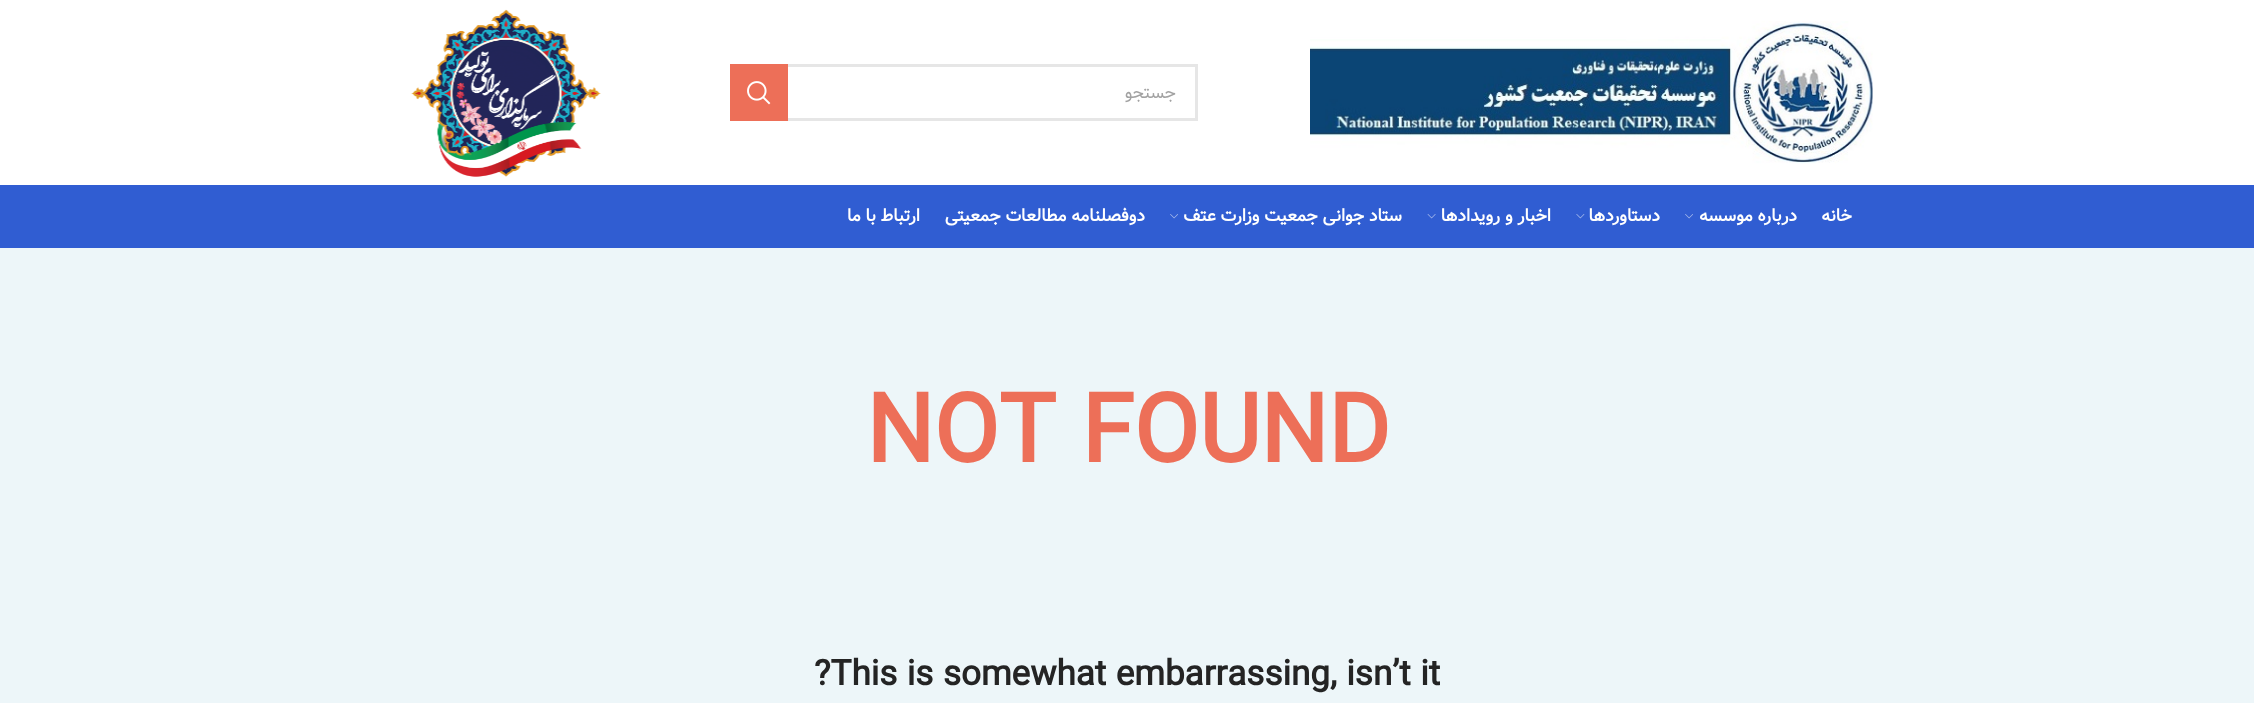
<svg xmlns="http://www.w3.org/2000/svg" width="2254" height="703" viewBox="0 0 2254 703">
  <rect width="100%" height="100%" fill="#fff"/>
  <image x="1310" y="21" width="563" height="143" href="img/1.png"/>
  <path d="M731.5 65.5h465v54H731.5z" fill="none" stroke="#e6e6e6" stroke-width="3"/>
  <path d="M730 64h58v57H730z" fill="#ed6f58"/>
  <image x="747" y="81" width="24" height="24" href="img/2.png"/>
  <image x="411" y="9" width="190" height="168" href="img/3.png"/>
  <path d="M0 185h2254v63H0z" fill="#305dd2"/>
  <image x="1685" y="214" width="8" height="5" href="img/4.png"/>
  <image x="1576" y="214" width="9" height="5" href="img/5.png"/>
  <image x="1427" y="214" width="9" height="5" href="img/6.png"/>
  <image x="1170" y="214" width="8" height="5" href="img/4.png"/>
  <path d="M0 248h2254v455H0z" fill="#edf6f9"/>
  <text x="1176" y="98" font-family="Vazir" font-size="17.5" direction="rtl" fill="#a2a2a2">جستجو</text>
  <g font-family="Vazir" font-size="17.5" font-weight="bold" direction="rtl" fill="#fff">
    <text x="1852" y="221">خانه</text>
    <text x="1797" y="221">درباره موسسه</text>
    <text x="1660" y="221">دستاوردها</text>
    <text x="1551" y="221">اخبار و رویدادها</text>
    <text x="1402" y="221">ستاد جوانی جمعیت وزارت عتف</text>
    <text x="1145" y="221">دوفصلنامه مطالعات جمعیتی</text>
    <text x="920" y="221">ارتباط با ما</text>
  </g>
  <text x="866" y="462" font-family="Vazir" font-size="94.75" font-weight="bold" fill="#ed6f58">NOT FOUND</text>
  <text x="814" y="685" font-family="Vazir" font-size="35" font-weight="bold" fill="#242424">?This is somewhat embarrassing, isn’t it</text>
</svg>
